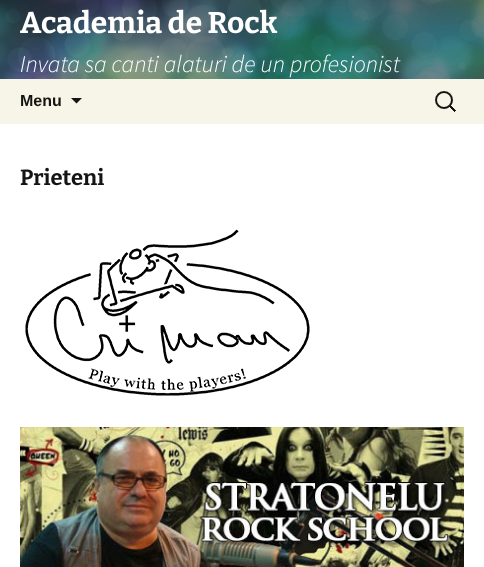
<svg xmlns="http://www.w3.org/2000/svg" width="484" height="567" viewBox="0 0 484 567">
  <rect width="100%" height="100%" fill="#fff"/>
  <image x="0" y="0" width="484" height="79" href="img/1.png"/>
  <path d="M0 79h484v45H0z" fill="#f7f5e7"/>
  <path d="M71 98L76.5 103.5L82 98Z" fill="#141412"/>
  <image x="435" y="91" width="21" height="21" href="img/2.png"/>
  <image x="25" y="229" width="285" height="167" href="img/3.png"/>
  <image x="20" y="427" width="444" height="140" href="img/4.png"/>
  <text x="20" y="33" font-family="Bitter" font-size="30" font-weight="bold" fill="#fff">Academia de Rock</text>
  <text x="20" y="72" font-family="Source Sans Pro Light" font-size="24" font-weight="300" font-style="italic" fill="#fff">Invata sa canti alaturi de un profesionist</text>
  <text x="20" y="106" font-family="Liberation Sans" font-size="16" font-weight="bold" fill="#141412">Menu</text>
  <text x="20" y="185" font-family="Bitter" font-size="22" font-weight="bold" fill="#141412">Prieteni</text>
</svg>
